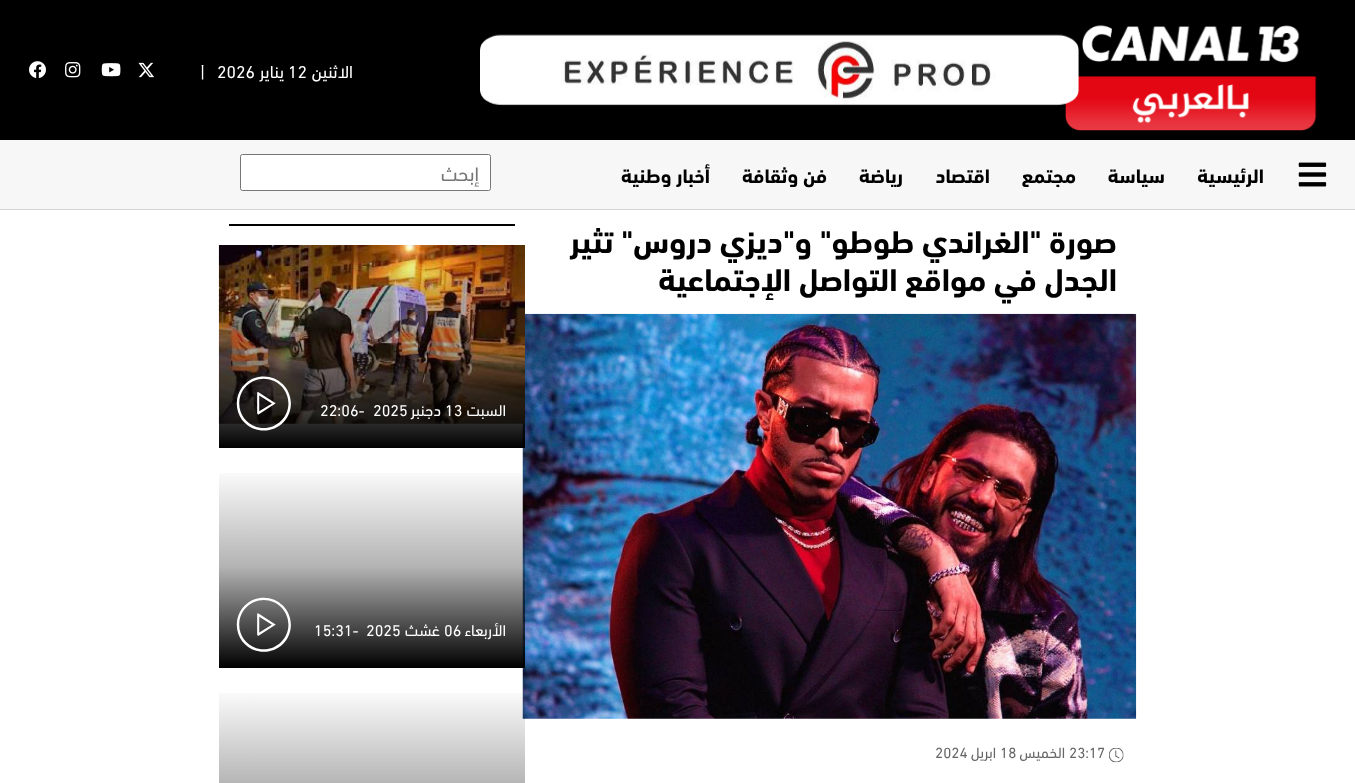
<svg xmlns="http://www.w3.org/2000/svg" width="1355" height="783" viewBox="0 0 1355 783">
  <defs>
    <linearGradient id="g1" gradientUnits="userSpaceOnUse" x1="372" y1="448" x2="372" y2="245"><stop offset="0" stop-color="#000"/><stop offset="0.5" stop-color="#000" stop-opacity="0.3"/><stop offset="1" stop-color="#000" stop-opacity="0"/></linearGradient>
    <linearGradient id="g2" gradientUnits="userSpaceOnUse" x1="372" y1="668" x2="372" y2="466"><stop offset="0" stop-color="#000"/><stop offset="0.5" stop-color="#000" stop-opacity="0.3"/><stop offset="1" stop-color="#000" stop-opacity="0"/></linearGradient>
    <linearGradient id="g3" gradientUnits="userSpaceOnUse" x1="372" y1="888" x2="372" y2="686"><stop offset="0" stop-color="#000"/><stop offset="0.5" stop-color="#000" stop-opacity="0.3"/><stop offset="1" stop-color="#000" stop-opacity="0"/></linearGradient>
  </defs>
  <rect width="100%" height="100%" fill="#fff"/>
  <path d="M0 0h1355v140H0z" fill="#000"/>
  <image x="1065" y="25" width="252" height="106" href="img/1.png"/>
  <image x="480" y="34" width="599" height="72" href="img/2.png"/>
  <image x="138" y="62" width="16" height="16" href="img/3.png"/>
  <image x="101" y="63" width="20" height="14" href="img/4.png"/>
  <image x="65" y="62" width="16" height="16" href="img/5.png"/>
  <image x="29" y="61" width="17" height="17" href="img/6.png"/>
  <path d="M0 141h1355v69H0z" fill="#d6d6d6" filter="blur(0.5px)"/>
  <path d="M0 140h1355v69H0z" fill="#f7f7f7"/>
  <image x="1298" y="162" width="29" height="25" href="img/7.png"/>
  <rect x="240.5" y="154.5" width="250" height="36" rx="2" fill="#fff" stroke="#767676"/>
  <image x="522" y="313" width="615" height="406" href="img/8.png"/>
  <image x="1109" y="748" width="15" height="15" href="img/9.png"/>
  <path d="M229 224h286v2H229z" fill="#000"/>
  <image x="218" y="245" width="307" height="179" href="img/10.png"/>
  <path d="M219 252h306v196H219z" fill="url(#g1)"/>
  <image x="236" y="376" width="55" height="55" href="img/11.png"/>
  <path d="M219 473h306v195H219z" fill="url(#g2)"/>
  <image x="236" y="597" width="55" height="55" href="img/12.png"/>
  <path d="M219 693h306v90H219z" fill="url(#g3)"/>
  <text x="353" y="78" font-family="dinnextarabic" font-size="17.5" direction="rtl" fill="#fff">الاثنين</text>
  <text x="288" y="78" font-family="dinnextarabic" font-size="17.5" fill="#fff">12</text>
  <text x="284" y="78" font-family="dinnextarabic" font-size="17.5" direction="rtl" fill="#fff">يناير</text>
  <g font-family="dinnextarabic" font-size="17.5" fill="#fff">
    <text x="217" y="78">2026</text>
    <text x="200" y="78">|</text>
  </g>
  <g font-family="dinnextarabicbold" font-size="20" font-weight="bold" direction="rtl" fill="#000">
    <text x="1264" y="183">الرئيسية</text>
    <text x="1165" y="183">سياسة</text>
    <text x="1076" y="183">مجتمع</text>
    <text x="990" y="183">اقتصاد</text>
    <text x="903" y="183">رياضة</text>
    <text x="827" y="183">فن وثقافة</text>
    <text x="710" y="183">أخبار وطنية</text>
  </g>
  <text x="479" y="181" font-family="dinnextarabic" font-size="20" direction="rtl" fill="#757575">إبحث</text>
  <g font-family="dinnextarabicbold" font-size="32" font-weight="bold" direction="rtl" fill="#000">
    <text x="1117" y="253">صورة "الغراندي طوطو" و"ديزي دروس" تثير</text>
    <text x="1117" y="291">الجدل في مواقع التواصل الإجتماعية</text>
  </g>
  <text x="1069" y="758" font-family="dinnextarabic" font-size="15" fill="#666">23:17</text>
  <text x="1065" y="758" font-family="dinnextarabic" font-size="15" direction="rtl" fill="#666">الخميس</text>
  <text x="1000" y="758" font-family="dinnextarabic" font-size="15" fill="#666">18</text>
  <text x="996" y="758" font-family="dinnextarabic" font-size="15" direction="rtl" fill="#666">ابريل</text>
  <text x="935" y="758" font-family="dinnextarabic" font-size="15" fill="#666">2024</text>
  <text x="506" y="416" font-family="dinnextarabic" font-size="16" direction="rtl" fill="#fff">السبت</text>
  <text x="445" y="416" font-family="dinnextarabic" font-size="16" fill="#fff">13</text>
  <text x="441" y="416" font-family="dinnextarabic" font-size="16" direction="rtl" fill="#fff">دجنبر</text>
  <g font-family="dinnextarabic" font-size="16" fill="#fff">
    <text x="373" y="416">2025</text>
    <text x="320" y="416">22:06-</text>
  </g>
  <text x="506" y="636" font-family="dinnextarabic" font-size="16" direction="rtl" fill="#fff">الأربعاء</text>
  <text x="444" y="636" font-family="dinnextarabic" font-size="16" fill="#fff">06</text>
  <text x="440" y="636" font-family="dinnextarabic" font-size="16" direction="rtl" fill="#fff">غشث</text>
  <g font-family="dinnextarabic" font-size="16" fill="#fff">
    <text x="366" y="636">2025</text>
    <text x="314" y="636">15:31-</text>
  </g>
</svg>
